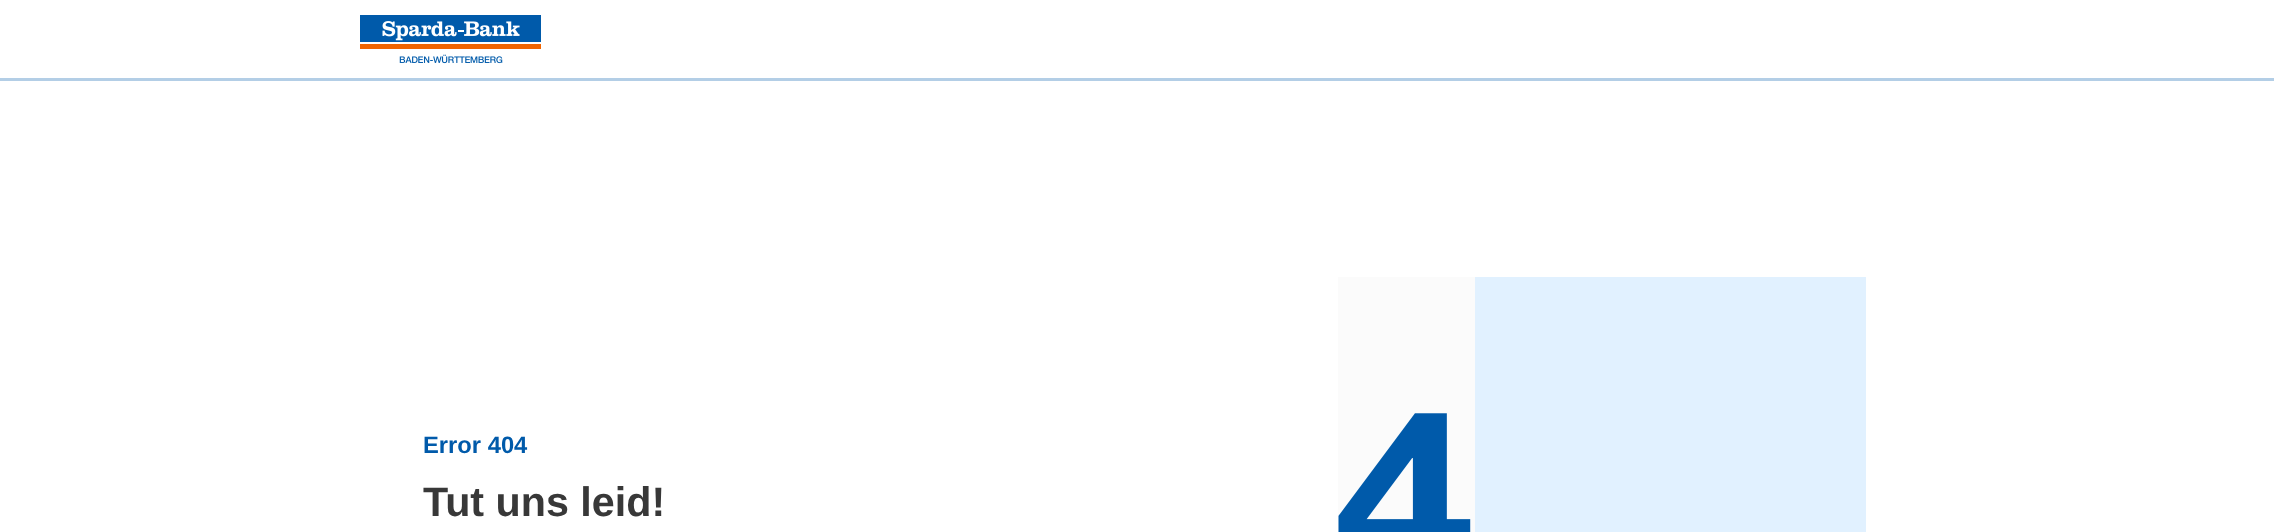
<svg xmlns="http://www.w3.org/2000/svg" width="2274" height="532" viewBox="0 0 2274 532">
  <rect width="100%" height="100%" fill="#fff"/>
  <path d="M0 78h2274v3H0z" fill="#b3cee6"/>
  <image x="360" y="15" width="181" height="49" href="img/1.png"/>
  <image x="1338" y="277" width="528" height="255" href="img/2.png"/>
  <text x="423" y="453" font-family="Liberation Sans" font-size="23.75" font-weight="bold" fill="#005aaa">Error 404</text>
  <text x="423" y="516" font-family="Liberation Sans" font-size="41.25" font-weight="bold" fill="#383838">Tut uns leid!</text>
</svg>
